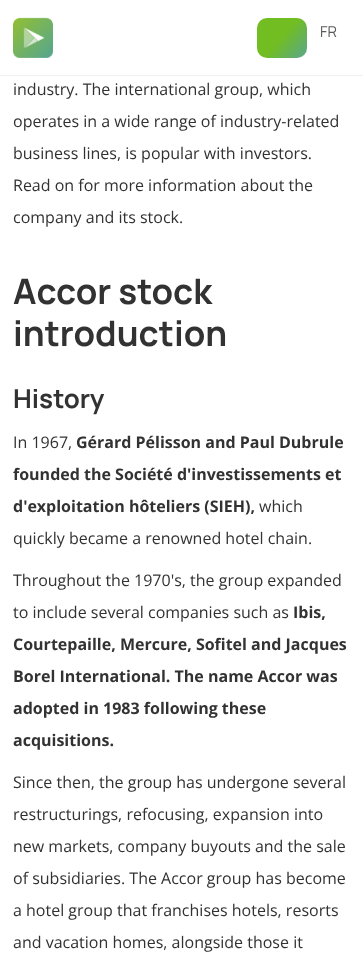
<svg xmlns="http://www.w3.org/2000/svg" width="363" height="969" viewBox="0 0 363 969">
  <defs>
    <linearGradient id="g1" gradientUnits="userSpaceOnUse" x1="258" y1="17" x2="306" y2="59"><stop offset="0" stop-color="#71bd22"/><stop offset="0.49" stop-color="#71bd22"/><stop offset="1" stop-color="#59a78e"/></linearGradient>
  </defs>
  <rect width="100%" height="100%" fill="#fff"/>
  <path d="M0 75h363v1H0z" fill="#f1f1f1"/>
  <image x="13" y="17" width="40" height="41" href="img/1.png"/>
  <rect x="257" y="18" width="50" height="40" rx="10" fill="url(#g1)"/>
  <text x="320" y="37" font-family="Manrope" font-size="15" fill="#5b5b5b">FR</text>
  <g font-family="Open Sans" font-size="16" fill="#323232">
    <text x="13" y="95">industry. The international group, which</text>
    <text x="13" y="127">operates in a wide range of industry-related</text>
    <text x="13" y="159">business lines, is popular with investors.</text>
    <text x="13" y="191">Read on for more information about the</text>
    <text x="13" y="223">company and its stock.</text>
  </g>
  <g font-family="Manrope" font-size="35" font-weight="bold" fill="#323232">
    <text x="13" y="304">Accor stock</text>
    <text x="13" y="346">introduction</text>
  </g>
  <text x="13" y="408" font-family="Manrope" font-size="26" font-weight="bold" fill="#323232">History</text>
  <text x="13" y="448" font-family="Open Sans" font-size="16" fill="#323232">In 1967,</text>
  <g font-family="Open Sans" font-size="16" font-weight="bold" fill="#323232">
    <text x="76" y="448">Gérard Pélisson and Paul Dubrule</text>
    <text x="13" y="480">founded the Société d'investissements et</text>
    <text x="13" y="512">d'exploitation hôteliers (SIEH),</text>
  </g>
  <g font-family="Open Sans" font-size="16" fill="#323232">
    <text x="259" y="512">which</text>
    <text x="13" y="544">quickly became a renowned hotel chain.</text>
    <text x="13" y="586">Throughout the 1970's, the group expanded</text>
    <text x="13" y="618">to include several companies such as</text>
  </g>
  <g font-family="Open Sans" font-size="16" font-weight="bold" fill="#323232">
    <text x="293" y="618">Ibis,</text>
    <text x="13" y="650">Courtepaille, Mercure, Sofitel and Jacques</text>
    <text x="13" y="682">Borel International. The name Accor was</text>
    <text x="13" y="714">adopted in 1983 following these</text>
    <text x="13" y="746">acquisitions.</text>
  </g>
  <g font-family="Open Sans" font-size="16" fill="#323232">
    <text x="13" y="788">Since then, the group has undergone several</text>
    <text x="13" y="820">restructurings, refocusing, expansion into</text>
    <text x="13" y="852">new markets, company buyouts and the sale</text>
    <text x="13" y="884">of subsidiaries. The Accor group has become</text>
    <text x="13" y="916">a hotel group that franchises hotels, resorts</text>
    <text x="13" y="948">and vacation homes, alongside those it</text>
  </g>
</svg>
